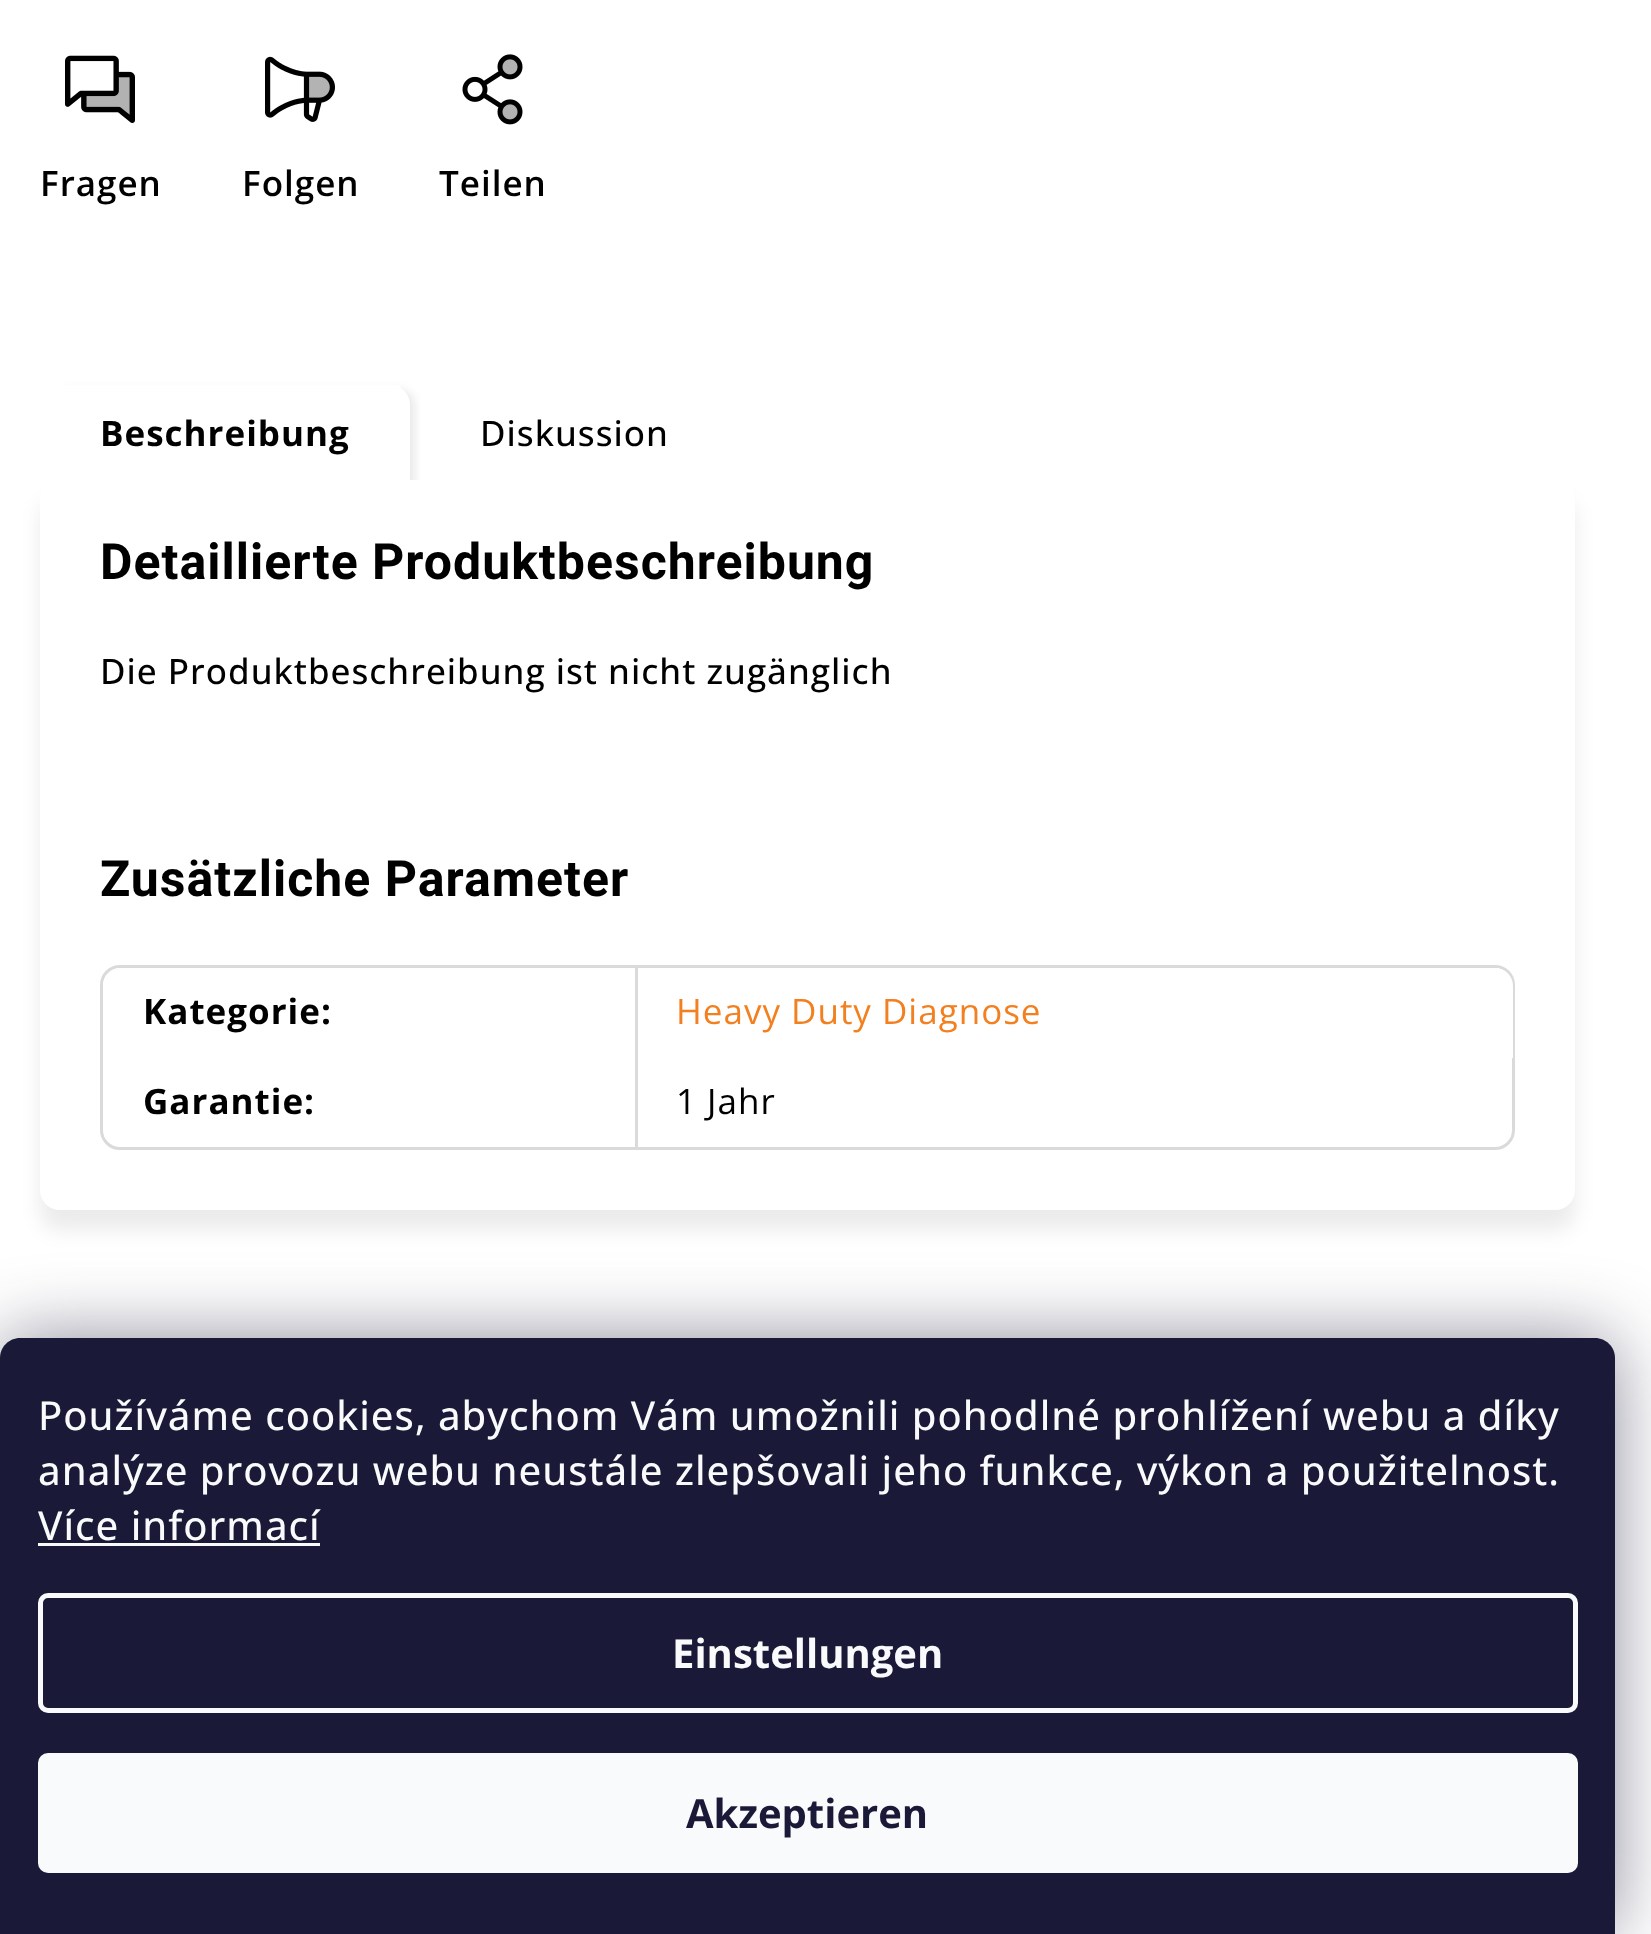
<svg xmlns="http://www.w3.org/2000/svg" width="1651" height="1934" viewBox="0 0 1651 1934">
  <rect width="100%" height="100%" fill="#fff"/>
  <image x="65" y="55" width="70" height="68" href="img/1.png"/>
  <path d="M84 93V105C84 111 86 110 92 110H119L132 120V84C132 77 134 75 127 75H116V88C116 94 115 93 109 93Z" fill="#0000004d"/>
  <image x="265" y="56" width="70" height="66" href="img/2.png"/>
  <image x="309" y="76" width="21" height="22" href="img/3.png"/>
  <image x="462" y="54" width="61" height="71" href="img/4.png"/>
  <path d="M510 57C497 57 497 77 510 77C523 77 523 57 510 57ZM510 102C497 102 497 122 510 122C523 122 523 102 510 102Z" fill="#0000004d"/>
  <rect x="55" y="390" width="360" height="105" rx="15" fill="#00000017" filter="blur(5px)"/>
  <path d="M60 385H390C401 385 410 394 410 405V500H40V405C40 394 49 385 60 385Z" fill="#fff"/>
  <path d="M395 385h5v3H395z" fill="#fff"/>
  <path d="M440 385H708C719 385 728 394 728 405V500H420V405C420 394 429 385 440 385Z" fill="#fff"/>
  <rect x="40" y="500" width="1535" height="730" rx="20" fill="#00000014" filter="blur(10px)"/>
  <rect x="40" y="480" width="1535" height="730" rx="20" fill="#fff"/>
  <rect x="101.5" y="966.5" width="1412" height="182" rx="18.5" fill="none" stroke="#dadada" stroke-width="3"/>
  <path d="M121 968H1495C1505 968 1513 976 1513 986V1058H103V986C103 976 111 968 121 968Z" fill="#fff"/>
  <path d="M635 968h3v180H635z" fill="#dadada"/>
  <rect y="1338" width="1615" height="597" rx="20" fill="#1b193980" filter="blur(37.5px)"/>
  <path d="M20 1338H1595C1606 1338 1615 1347 1615 1358V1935H0V1358C0 1347 9 1338 20 1338Z" fill="#1a1937"/>
  <path d="M38 1543h282v3H38z" fill="#f8fafb"/>
  <rect x="40.5" y="1595.5" width="1535" height="115" rx="7.5" fill="none" stroke="#f8fafb" stroke-width="5"/>
  <rect x="38" y="1753" width="1540" height="120" rx="10" fill="#f8fafb"/>
  <g font-family="Open Sans" font-size="35" font-weight="600" letter-spacing="1" fill="#000">
    <text x="40" y="196">Fragen</text>
    <text x="242" y="196">Folgen</text>
    <text x="439" y="196">Teilen</text>
  </g>
  <text x="100" y="446" font-family="Open Sans" font-size="35" font-weight="bold" letter-spacing="1" fill="#000">Beschreibung</text>
  <text x="480" y="446" font-family="Open Sans" font-size="35" font-weight="500" letter-spacing="1" fill="#000">Diskussion</text>
  <text x="100" y="579" font-family="Roboto" font-size="50" font-weight="bold" letter-spacing="1" fill="#000">Detaillierte Produktbeschreibung</text>
  <text x="100" y="684" font-family="Open Sans" font-size="35" font-weight="500" letter-spacing="1" fill="#000">Die Produktbeschreibung ist nicht zugänglich</text>
  <text x="100" y="896" font-family="Roboto" font-size="50" font-weight="bold" letter-spacing="1" fill="#000">Zusätzliche Parameter</text>
  <text x="143" y="1024" font-family="Open Sans" font-size="35" font-weight="bold" letter-spacing="1" fill="#000">Kategorie:</text>
  <text x="676" y="1024" font-family="Open Sans" font-size="35" letter-spacing="1" fill="#f38020">Heavy Duty Diagnose</text>
  <text x="143" y="1114" font-family="Open Sans" font-size="35" font-weight="bold" letter-spacing="1" fill="#000">Garantie:</text>
  <text x="676" y="1114" font-family="Open Sans" font-size="35" letter-spacing="1" fill="#000">1 Jahr</text>
  <g font-family="Open Sans" font-size="40" font-weight="500" letter-spacing="1" fill="#f8fafb">
    <text x="38" y="1430">Používáme cookies, abychom Vám umožnili pohodlné prohlížení webu a díky</text>
    <text x="38" y="1485">analýze provozu webu neustále zlepšovali jeho funkce, výkon a použitelnost.</text>
    <text x="38" y="1540">Více informací</text>
  </g>
  <text x="672" y="1668" font-family="Open Sans" font-size="40" font-weight="bold" fill="#f8fafb">Einstellungen</text>
  <text x="686" y="1828" font-family="Open Sans" font-size="40" font-weight="bold" fill="#1a1937">Akzeptieren</text>
</svg>
